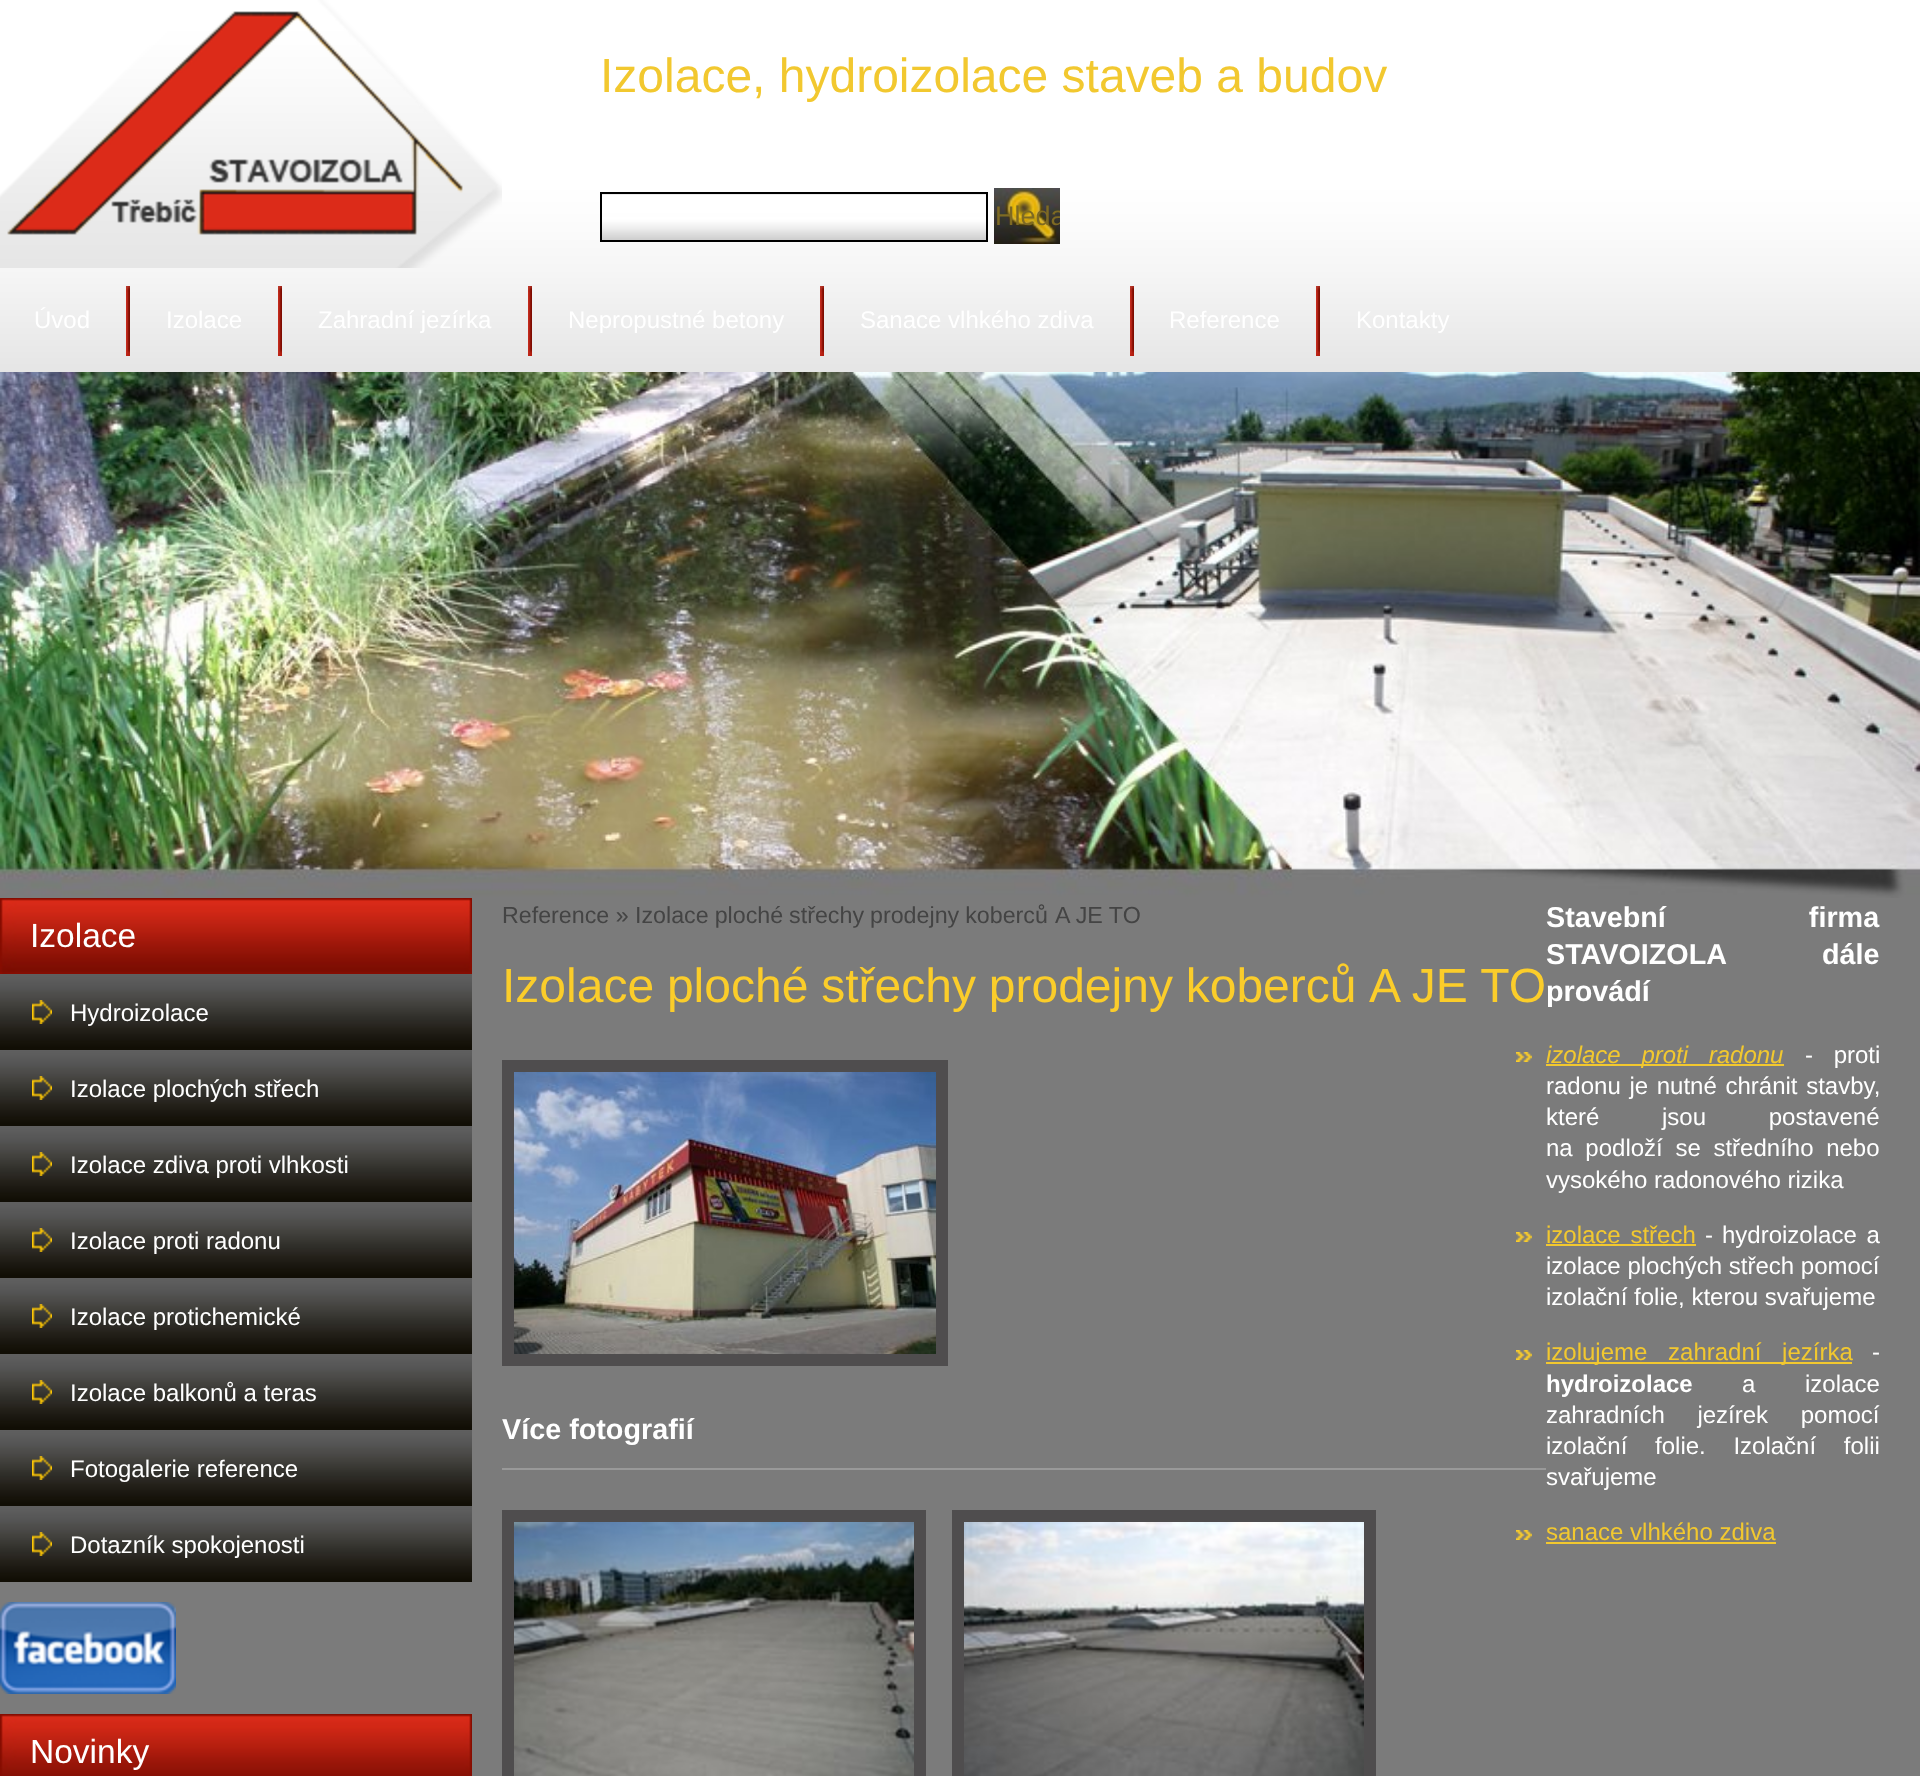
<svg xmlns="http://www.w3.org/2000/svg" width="1920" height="1776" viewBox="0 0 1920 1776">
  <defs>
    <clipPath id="clip1"><path d="M994 188h66v56H994z"/></clipPath>
  </defs>
  <rect width="100%" height="100%" fill="#7b7b7b"/>
  <image x="0" y="0" width="1920" height="372" href="img/1.png"/>
  <image x="0" y="0" width="502" height="268" href="img/2.png"/>
  <image x="602" y="194" width="384" height="46" href="img/3.png"/>
  <path d="M601 193h386v48H601z" fill="none" stroke="#000" stroke-width="2"/>
  <image x="994" y="188" width="66" height="56" href="img/4.png"/>
  <image x="126" y="286" width="4" height="70" href="img/5.png"/>
  <image x="278" y="286" width="4" height="70" href="img/5.png"/>
  <image x="528" y="286" width="4" height="70" href="img/5.png"/>
  <image x="820" y="286" width="4" height="70" href="img/5.png"/>
  <image x="1130" y="286" width="4" height="70" href="img/5.png"/>
  <image x="1316" y="286" width="4" height="70" href="img/5.png"/>
  <image x="0" y="372" width="1920" height="526" href="img/6.png"/>
  <image x="0" y="898" width="472" height="76" href="img/7.png"/>
  <image x="0" y="974" width="472" height="76" href="img/8.png"/>
  <image x="32" y="1000" width="20" height="24" href="img/9.png"/>
  <image x="0" y="1050" width="472" height="76" href="img/8.png"/>
  <image x="32" y="1076" width="20" height="24" href="img/9.png"/>
  <image x="0" y="1126" width="472" height="76" href="img/8.png"/>
  <image x="32" y="1152" width="20" height="24" href="img/9.png"/>
  <image x="0" y="1202" width="472" height="76" href="img/8.png"/>
  <image x="32" y="1228" width="20" height="24" href="img/9.png"/>
  <image x="0" y="1278" width="472" height="76" href="img/8.png"/>
  <image x="32" y="1304" width="20" height="24" href="img/9.png"/>
  <image x="0" y="1354" width="472" height="76" href="img/8.png"/>
  <image x="32" y="1380" width="20" height="24" href="img/9.png"/>
  <image x="0" y="1430" width="472" height="76" href="img/8.png"/>
  <image x="32" y="1456" width="20" height="24" href="img/9.png"/>
  <image x="0" y="1506" width="472" height="76" href="img/8.png"/>
  <image x="32" y="1532" width="20" height="24" href="img/9.png"/>
  <image x="0" y="1602" width="176" height="92" href="img/10.png"/>
  <image x="0" y="1714" width="472" height="62" href="img/11.png"/>
  <path d="M508 1066h434v294H508z" fill="none" stroke="#4f4d4e" stroke-width="12"/>
  <image x="514" y="1072" width="422" height="282" href="img/12.png"/>
  <path d="M502 1468h1044v2H502z" fill="#999"/>
  <path d="M508 1516h412v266H508z" fill="none" stroke="#4f4d4e" stroke-width="12"/>
  <image x="514" y="1522" width="400" height="254" href="img/13.png"/>
  <path d="M958 1516h412v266H958z" fill="none" stroke="#4f4d4e" stroke-width="12"/>
  <image x="964" y="1522" width="400" height="254" href="img/14.png"/>
  <image x="1516" y="1052" width="16" height="10" href="img/15.png"/>
  <path d="M1546 1064h238v2H1546z" fill="#f2c82f"/>
  <image x="1516" y="1232" width="16" height="10" href="img/15.png"/>
  <path d="M1546 1244h150v2H1546z" fill="#f2c82f"/>
  <image x="1516" y="1350" width="16" height="10" href="img/15.png"/>
  <path d="M1546 1362h306v2H1546z" fill="#f2c82f"/>
  <image x="1516" y="1530" width="16" height="10" href="img/15.png"/>
  <path d="M1546 1542h230v2H1546z" fill="#f2c82f"/>
  <text x="600" y="92" font-family="Liberation Sans" font-size="48" fill="#f2c82f">Izolace, hydroizolace staveb a budov</text>
  <g clip-path="url(#clip1)">
    <text x="995" y="225" font-family="Liberation Sans" font-size="27" fill="#7e6a23">Hleda</text>
  </g>
  <g font-family="Liberation Sans" font-size="24" fill="#fff">
    <text x="34" y="328">Úvod</text>
    <text x="166" y="328">Izolace</text>
    <text x="318" y="328">Zahradní jezírka</text>
    <text x="568" y="328">Nepropustné betony</text>
    <text x="860" y="328">Sanace vlhkého zdiva</text>
    <text x="1169" y="328">Reference</text>
    <text x="1356" y="328">Kontakty</text>
  </g>
  <text x="30" y="947" font-family="Liberation Sans" font-size="33.5" fill="#fff">Izolace</text>
  <g font-family="Liberation Sans" font-size="24" fill="#fff">
    <text x="70" y="1021">Hydroizolace</text>
    <text x="70" y="1097">Izolace plochých střech</text>
    <text x="70" y="1173">Izolace zdiva proti vlhkosti</text>
    <text x="70" y="1249">Izolace proti radonu</text>
    <text x="70" y="1325">Izolace protichemické</text>
    <text x="70" y="1401">Izolace balkonů a teras</text>
    <text x="70" y="1477">Fotogalerie reference</text>
    <text x="70" y="1553">Dotazník spokojenosti</text>
  </g>
  <text x="30" y="1763" font-family="Liberation Sans" font-size="33.5" fill="#fff">Novinky</text>
  <g font-family="Liberation Sans" font-size="23.25" fill="#444">
    <text x="502" y="923">Reference »</text>
    <text x="635" y="923" word-spacing="-0.5">Izolace ploché střechy prodejny koberců</text>
    <text x="1055" y="923">A JE TO</text>
  </g>
  <g font-family="Liberation Sans" font-size="48" fill="#fbcd2a">
    <text x="502" y="1002" word-spacing="-0.5">Izolace ploché střechy prodejny koberců</text>
    <text x="1369" y="1002">A JE TO</text>
  </g>
  <g font-family="Liberation Sans" font-size="28.75" font-weight="bold" fill="#fff">
    <text x="502" y="1439">Více fotografií</text>
    <text x="1546" y="927" word-spacing="135">Stavební firma</text>
    <text x="1546" y="964" word-spacing="88">STAVOIZOLA dále</text>
    <text x="1546" y="1001">provádí</text>
  </g>
  <text x="1546" y="1063" word-spacing="14" font-family="Liberation Sans" font-size="24" font-style="italic" fill="#f2c82f">izolace proti radonu</text>
  <g font-family="Liberation Sans" font-size="24" fill="#fff">
    <text x="1805" y="1063" word-spacing="14">- proti</text>
    <text x="1546" y="1094" word-spacing="2">radonu je nutné chránit stavby,</text>
    <text x="1546" y="1125" word-spacing="56">které jsou postavené</text>
    <text x="1546" y="1156" word-spacing="6">na podloží se středního nebo</text>
    <text x="1546" y="1188">vysokého radonového rizika</text>
  </g>
  <text x="1546" y="1243" word-spacing="3" font-family="Liberation Sans" font-size="24" fill="#f2c82f">izolace střech</text>
  <g font-family="Liberation Sans" font-size="24" fill="#fff">
    <text x="1705" y="1243">-</text>
    <text x="1722" y="1243" word-spacing="3">hydroizolace a</text>
    <text x="1546" y="1274">izolace plochých střech pomocí</text>
    <text x="1546" y="1305">izolační folie, kterou svařujeme</text>
  </g>
  <text x="1546" y="1360" word-spacing="14" font-family="Liberation Sans" font-size="24" fill="#f2c82f">izolujeme zahradní jezírka</text>
  <text x="1872" y="1360" font-family="Liberation Sans" font-size="24" fill="#fff">-</text>
  <text x="1546" y="1392" font-family="Liberation Sans" font-size="24" font-weight="bold" fill="#fff">hydroizolace</text>
  <g font-family="Liberation Sans" font-size="24" fill="#fff">
    <text x="1742" y="1392" word-spacing="43">a izolace</text>
    <text x="1546" y="1423" word-spacing="26">zahradních jezírek pomocí</text>
    <text x="1546" y="1454" word-spacing="21">izolační folie. Izolační folii</text>
    <text x="1546" y="1485">svařujeme</text>
  </g>
  <text x="1546" y="1540" font-family="Liberation Sans" font-size="24" fill="#f2c82f">sanace vlhkého zdiva</text>
</svg>
